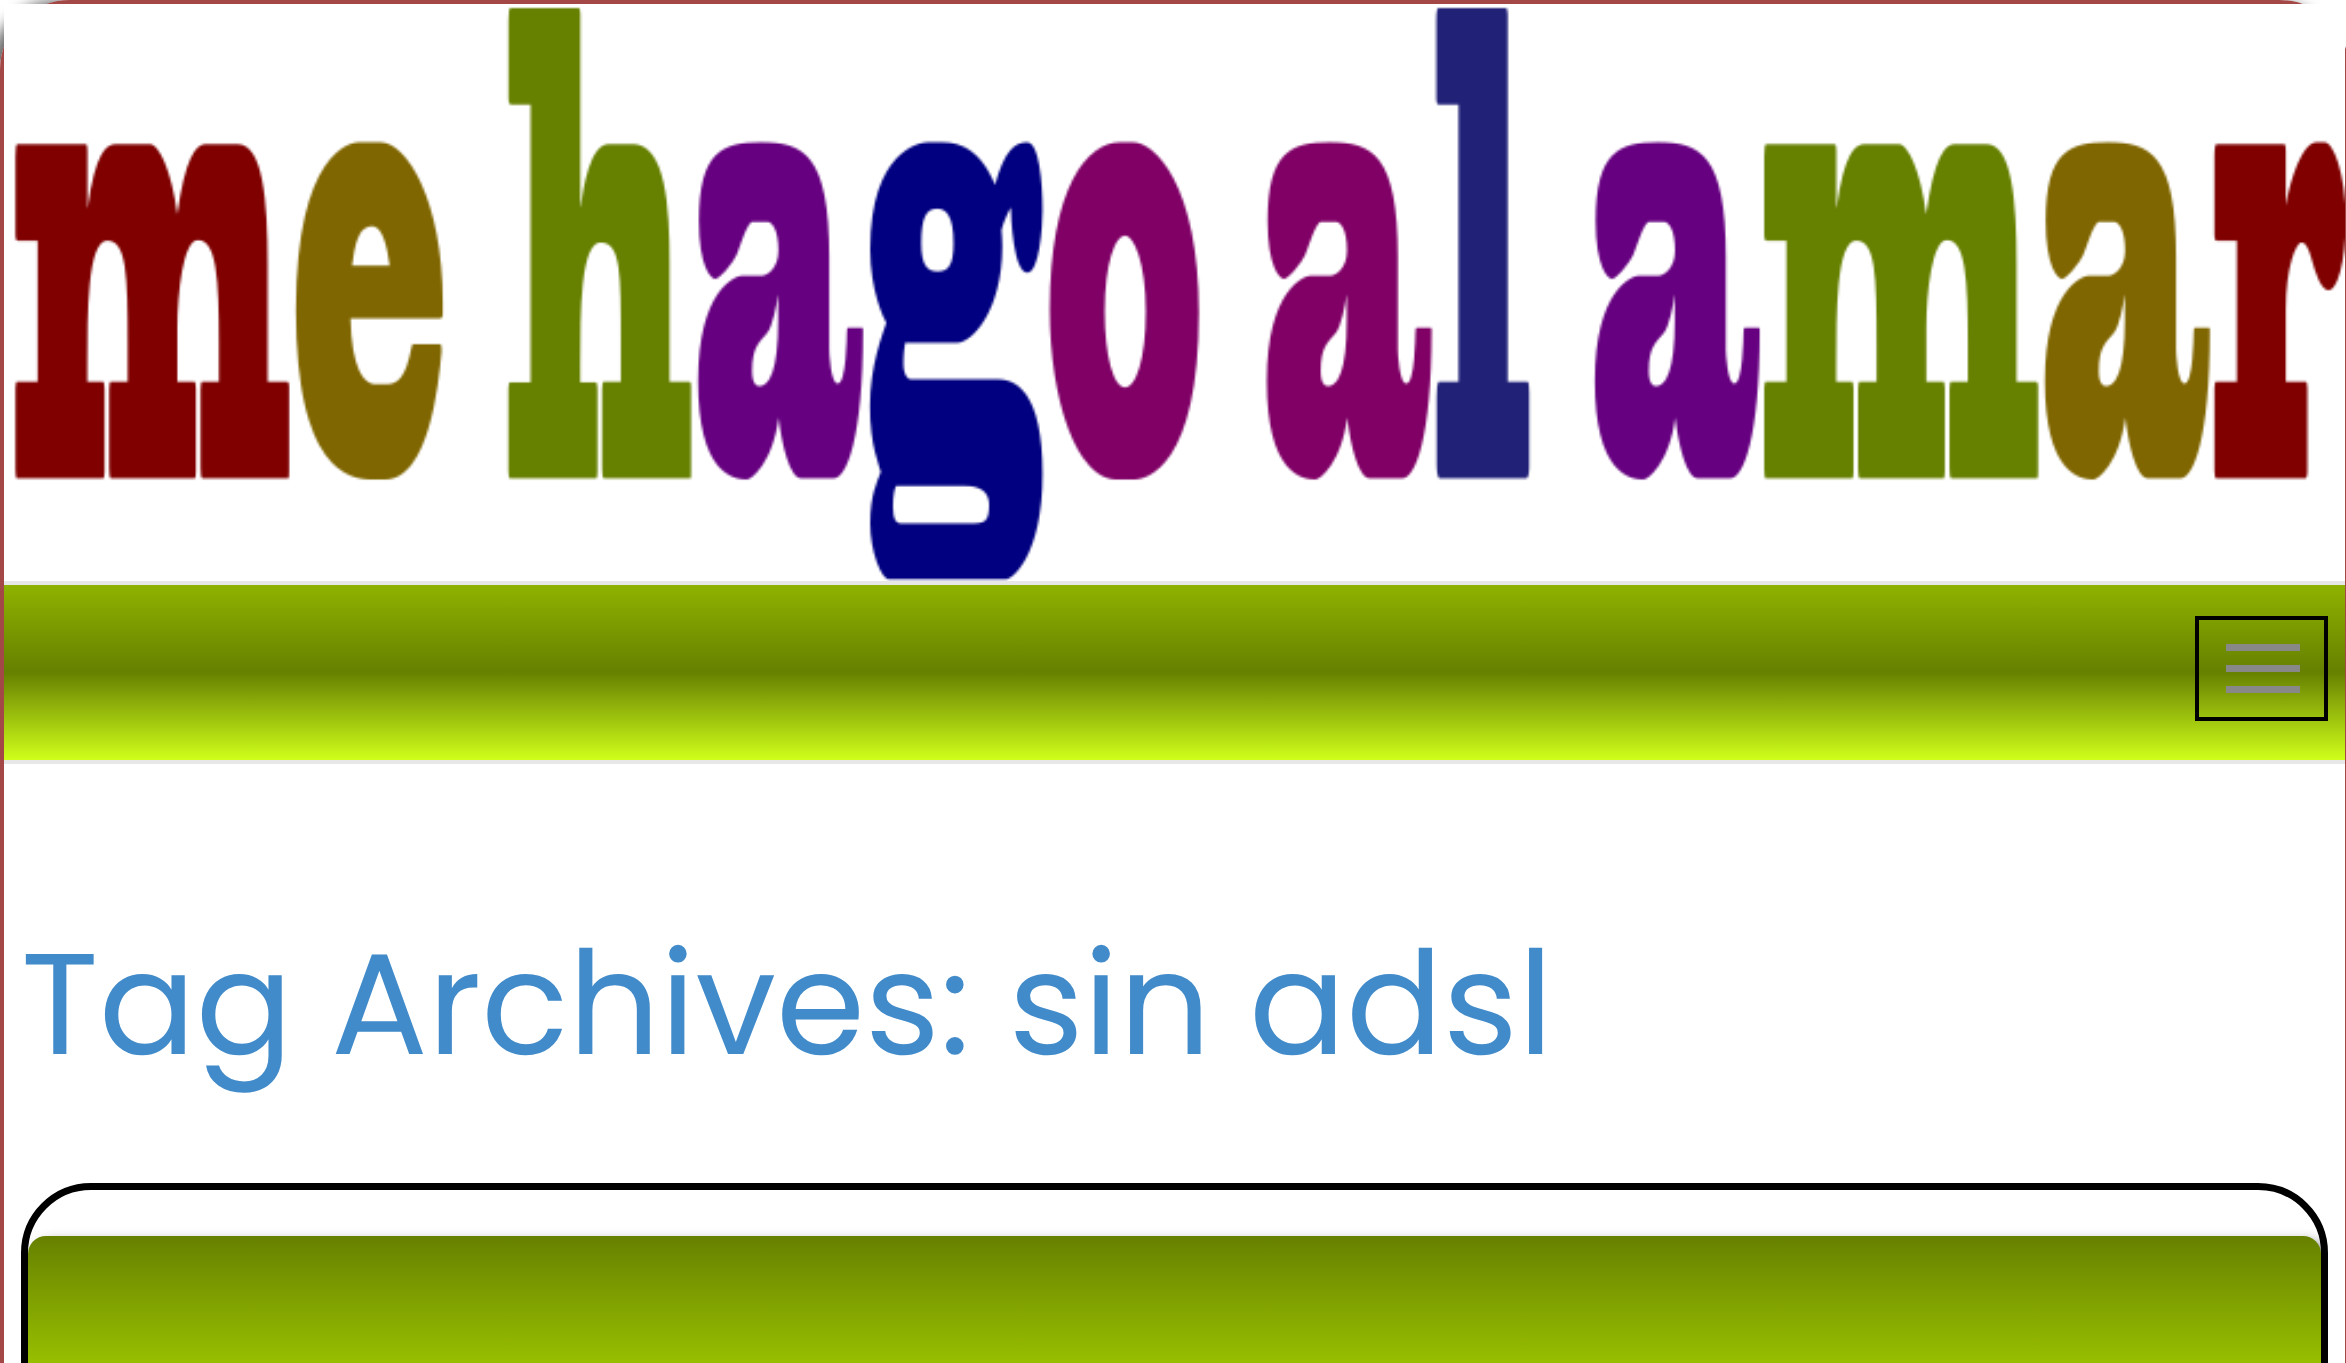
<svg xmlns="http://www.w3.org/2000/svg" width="2346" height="1363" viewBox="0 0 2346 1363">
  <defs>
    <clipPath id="clip1"><path d="M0 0H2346V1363H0ZM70 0H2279C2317.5 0 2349 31.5 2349 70V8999C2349 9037.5 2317.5 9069 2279 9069H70C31.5 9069 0 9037.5 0 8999V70C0 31.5 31.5 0 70 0Z" clip-rule="evenodd"/></clipPath>
    <linearGradient id="g1" gradientUnits="userSpaceOnUse" x1="1174" y1="584" x2="1174" y2="760"><stop offset="0" stop-color="#8fb300"/><stop offset="0.5" stop-color="#668000"/><stop offset="1" stop-color="#d0ff1a"/></linearGradient>
    <clipPath id="clip2"><path d="M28 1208h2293v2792H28z"/></clipPath>
    <linearGradient id="g2" gradientUnits="userSpaceOnUse" x1="1174" y1="1235" x2="1174" y2="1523"><stop offset="0" stop-color="#668000"/><stop offset="0.72" stop-color="#b7e600"/><stop offset="1" stop-color="#8fb300"/></linearGradient>
  </defs>
  <rect width="100%" height="100%" fill="#fff"/>
  <g clip-path="url(#clip1)">
    <rect x="-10" width="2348" height="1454" rx="70" fill="#00000096" filter="blur(7px)"/>
  </g>
  <rect x="2" y="2" width="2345" height="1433" rx="68" fill="none" stroke="#a34747" stroke-width="4"/>
  <path d="M4 4h2341v65H4z" fill="#fff"/>
  <image x="14" y="7" width="2331" height="574" href="img/1.png"/>
  <path d="M4 585h2341v175H4z" fill="url(#g1)"/>
  <path d="M4 581h2341v4H4z" fill="#e7e7e7"/>
  <path d="M4 760h2341v4H4z" fill="#e7e7e7"/>
  <path d="M2197 618h129v101H2197z" fill="none" stroke="#000" stroke-width="4"/>
  <path d="M2226 644h74v7H2226z" fill="#888"/>
  <path d="M2226 665h74v7H2226z" fill="#888"/>
  <path d="M2226 686h74v7H2226z" fill="#888"/>
  <rect x="24.5" y="1186.5" width="2300" height="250" rx="66.5" fill="none" stroke="#000" stroke-width="7"/>
  <g clip-path="url(#clip2)">
    <rect x="35" y="1243" width="2293" height="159" rx="18" fill="#00000096" filter="blur(7px)"/>
  </g>
  <rect x="28" y="1236" width="2293" height="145" rx="18" fill="url(#g2)"/>
  <text x="21" y="1054" font-family="Poppins" font-size="143.5" fill="#428bca">Tag Archives: sin adsl</text>
</svg>
